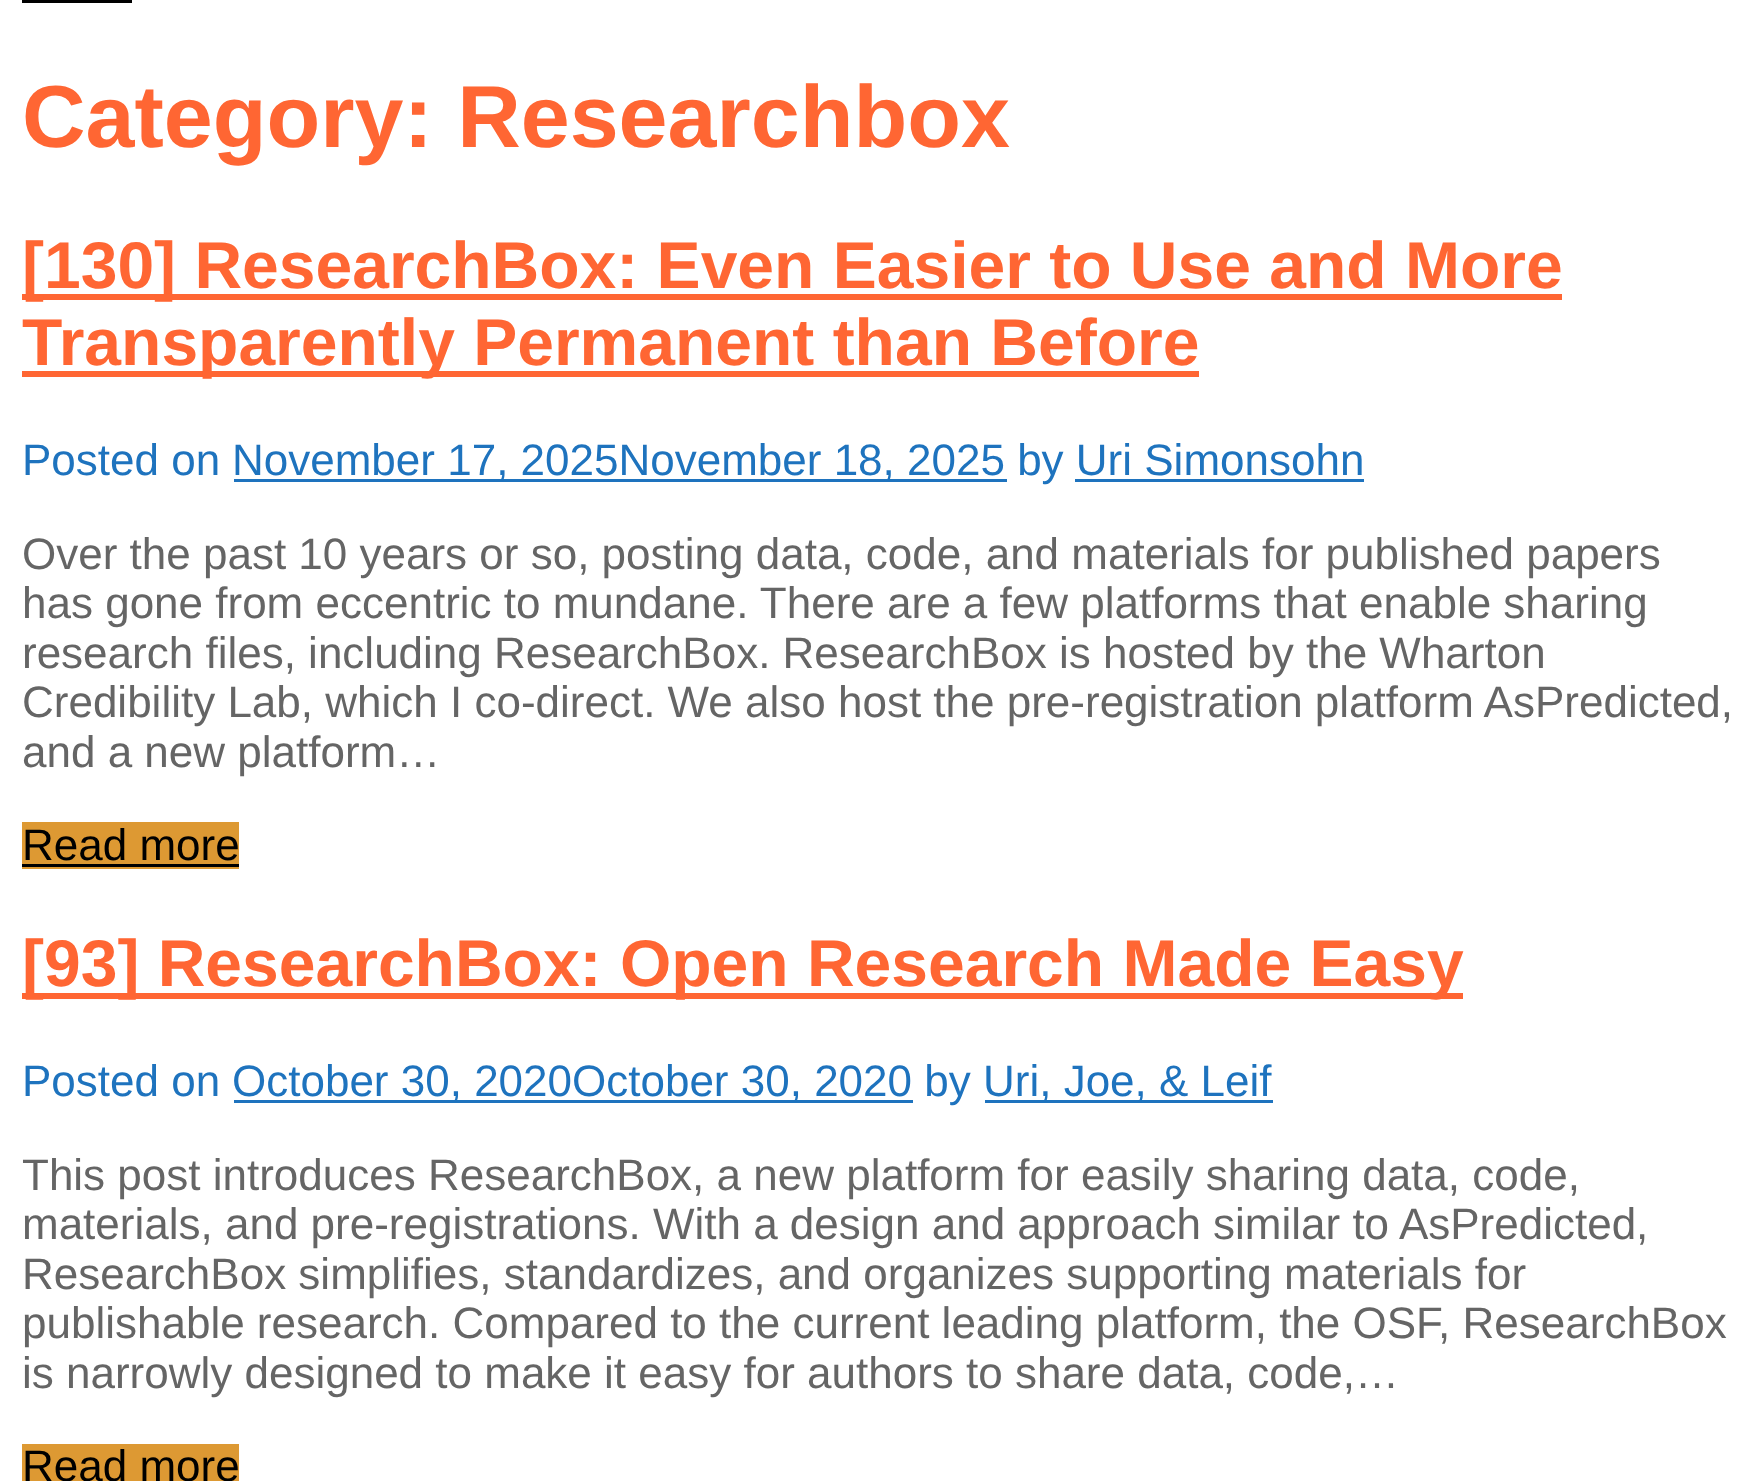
<svg xmlns="http://www.w3.org/2000/svg" width="1755" height="1481" viewBox="0 0 1755 1481">
  <rect width="100%" height="100%" fill="#fff"/>
  <path d="M22 0h110v3H22z" fill="#000"/>
  <path d="M22 294h1540v6H22z" fill="#f63"/>
  <path d="M22 371h1177v6H22z" fill="#f63"/>
  <path d="M234 479h773v3H234z" fill="#1e73be"/>
  <path d="M1075 479h289v3H1075z" fill="#1e73be"/>
  <path d="M22 822h217v47H22z" fill="#d93"/>
  <path d="M22 864h217v3H22z" fill="#000"/>
  <path d="M22 993h1441v6H22z" fill="#f63"/>
  <path d="M234 1100h679v3H234z" fill="#1e73be"/>
  <path d="M985 1100h288v3H985z" fill="#1e73be"/>
  <path d="M22 1444h217v37H22z" fill="#d93"/>
  <text x="22" y="147" font-family="Liberation Sans" font-size="88" font-weight="bold" fill="#f63">Category: Researchbox</text>
  <g font-family="Liberation Sans" font-size="66" font-weight="bold" fill="#f63">
    <text x="22" y="288">[130] ResearchBox: Even Easier to Use and More</text>
    <text x="22" y="365">Transparently Permanent than Before</text>
  </g>
  <g font-family="Liberation Sans" font-size="44" fill="#1e73be">
    <text x="22" y="475">Posted on</text>
    <text x="232" y="475">November 17, 2025November 18, 2025 by Uri Simonsohn</text>
  </g>
  <g font-family="Liberation Sans" font-size="44" fill="#656565">
    <text x="22" y="569">Over the past 10 years or so, posting data, code, and materials for published papers</text>
    <text x="22" y="618">has gone from eccentric to mundane. There are a few platforms that enable sharing</text>
    <text x="22" y="668">research files, including ResearchBox. ResearchBox is hosted by the Wharton</text>
    <text x="22" y="717">Credibility Lab, which I co-direct. We also host the pre-registration platform AsPredicted,</text>
    <text x="22" y="767">and a new platform…</text>
  </g>
  <text x="22" y="860" font-family="Liberation Sans" font-size="44" fill="#000">Read more</text>
  <text x="22" y="986" font-family="Liberation Sans" font-size="66" font-weight="bold" fill="#f63">[93] ResearchBox: Open Research Made Easy</text>
  <g font-family="Liberation Sans" font-size="44" fill="#1e73be">
    <text x="22" y="1096">Posted on</text>
    <text x="232" y="1096">October 30, 2020October 30, 2020 by</text>
    <text x="983" y="1096">Uri, Joe, &amp; Leif</text>
  </g>
  <g font-family="Liberation Sans" font-size="44" fill="#656565">
    <text x="22" y="1190">This post introduces ResearchBox, a new platform for easily sharing data, code,</text>
    <text x="22" y="1239">materials, and pre-registrations. With a design and approach similar to AsPredicted,</text>
    <text x="22" y="1289">ResearchBox simplifies, standardizes, and organizes supporting materials for</text>
    <text x="22" y="1338">publishable research. Compared to the current leading platform, the OSF, ResearchBox</text>
    <text x="22" y="1388">is narrowly designed to make it easy for authors to share data, code,…</text>
  </g>
  <text x="22" y="1481" font-family="Liberation Sans" font-size="44" fill="#000">Read more</text>
</svg>
